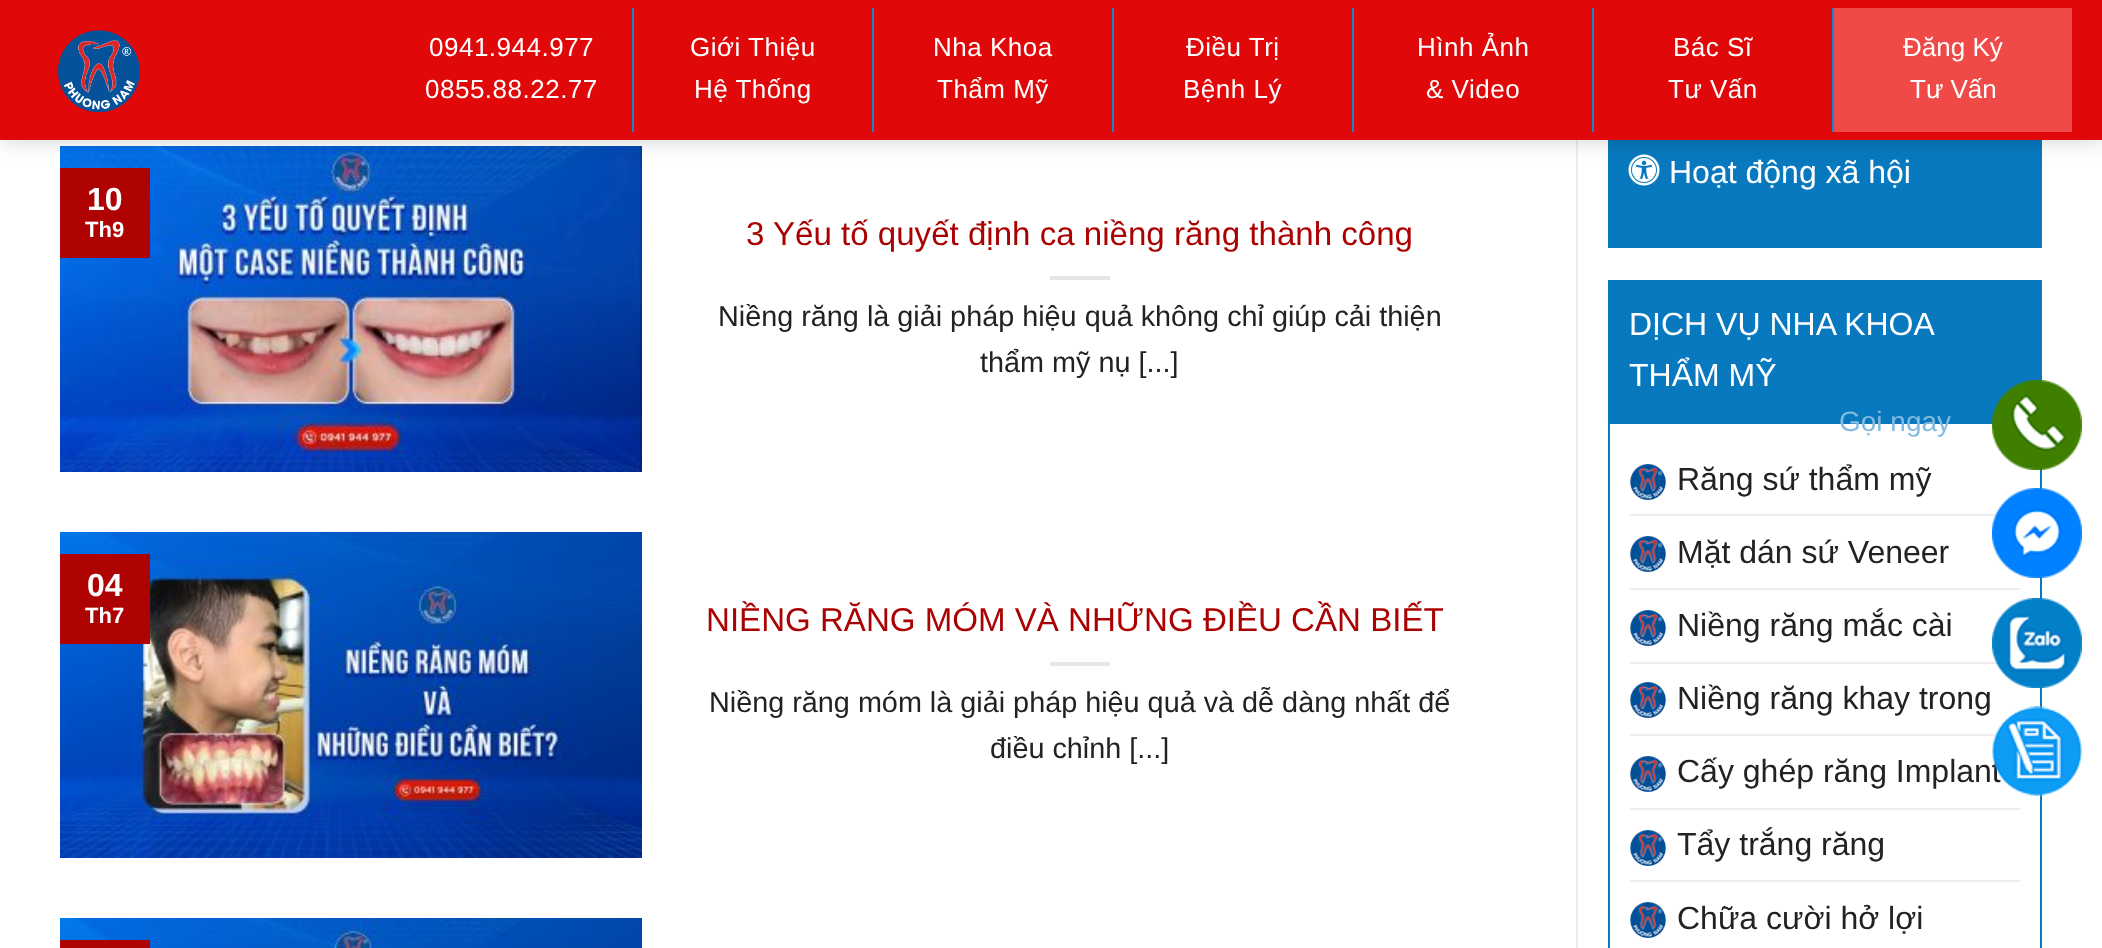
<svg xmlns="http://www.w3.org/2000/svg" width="2102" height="948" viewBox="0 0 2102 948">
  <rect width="100%" height="100%" fill="#fff"/>
  <image x="60" y="146" width="582" height="326" href="img/2.png"/>
  <path d="M60 168h90v90H60z" fill="#af0202"/>
  <path d="M1576 140h2v808H1576z" fill="#ececec"/>
  <path d="M1608 140h434v108H1608z" fill="#0879bf"/>
  <image x="1628" y="154" width="32" height="32" href="img/5.png"/>
  <path d="M2 2h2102v140H2z" fill="#00000026" filter="blur(10px)"/>
  <path d="M0 0h2102v140H0z" fill="#e00808"/>
  <image x="58" y="30" width="82" height="83" href="img/1.png"/>
  <path d="M632 8h2v124H632z" fill="#1586cc"/>
  <path d="M872 8h2v124H872z" fill="#1586cc"/>
  <path d="M1112 8h2v124H1112z" fill="#1586cc"/>
  <path d="M1352 8h2v124H1352z" fill="#1586cc"/>
  <path d="M1592 8h2v124H1592z" fill="#1586cc"/>
  <path d="M1834 8h238v124H1834z" fill="#ef4a47"/>
  <path d="M1832 8h2v124H1832z" fill="#1586cc"/>
  <path d="M1050 276h60v4H1050z" fill="#e6e6e6"/>
  <image x="60" y="532" width="582" height="326" href="img/3.png"/>
  <path d="M60 554h90v90H60z" fill="#af0202"/>
  <path d="M1050 662h60v4H1050z" fill="#e6e6e6"/>
  <image x="60" y="918" width="582" height="30" href="img/4.png"/>
  <path d="M60 940h90v8H60z" fill="#af0202"/>
  <path d="M1608 280h434v142H1608z" fill="#0879bf"/>
  <path d="M1609 423h432v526H1609z" fill="none" stroke="#0879bf" stroke-width="2"/>
  <image x="1630" y="464" width="36" height="36" href="img/6.png"/>
  <path d="M1630 514h367v2H1630z" fill="#eee"/>
  <image x="1630" y="536" width="36" height="36" href="img/6.png"/>
  <path d="M1630 588h390v2H1630z" fill="#eee"/>
  <image x="1630" y="610" width="36" height="36" href="img/7.png"/>
  <path d="M1630 662h369v2H1630z" fill="#eee"/>
  <image x="1630" y="682" width="36" height="36" href="img/8.png"/>
  <path d="M1630 734h368v2H1630z" fill="#eee"/>
  <image x="1630" y="756" width="36" height="36" href="img/6.png"/>
  <path d="M1630 808h390v2H1630z" fill="#eee"/>
  <image x="1630" y="830" width="36" height="36" href="img/6.png"/>
  <path d="M1630 880h390v2H1630z" fill="#eee"/>
  <image x="1630" y="902" width="36" height="36" href="img/9.png"/>
  <image x="1992" y="380" width="90" height="90" href="img/10.png"/>
  <image x="1992" y="488" width="90" height="90" href="img/11.png"/>
  <image x="1992" y="598" width="90" height="90" href="img/12.png"/>
  <g font-family="Arimo" font-size="26" letter-spacing="0.5" fill="#fff">
    <text x="429" y="56">0941.944.977</text>
    <text x="425" y="98">0855.88.22.77</text>
    <text x="690" y="56">Giới Thiệu</text>
    <text x="694" y="98">Hệ Thống</text>
    <text x="933" y="56">Nha Khoa</text>
    <text x="937" y="98">Thẩm Mỹ</text>
    <text x="1186" y="56">Điều Trị</text>
    <text x="1183" y="98">Bệnh Lý</text>
    <text x="1417" y="56">Hình Ảnh</text>
    <text x="1426" y="98">&amp; Video</text>
    <text x="1673" y="56">Bác Sĩ</text>
    <text x="1668" y="98">Tư Vấn</text>
  </g>
  <g font-family="Arimo" font-size="26" fill="#fff">
    <text x="1903" y="56">Đăng Ký</text>
    <text x="1910" y="98">Tư Vấn</text>
  </g>
  <text x="87" y="210" font-family="Arimo" font-size="32" font-weight="bold" fill="#fff">10</text>
  <text x="85" y="237" font-family="Arimo" font-size="22" font-weight="bold" fill="#fff">Th9</text>
  <text x="746" y="245" font-family="Arimo" font-size="33.1" fill="#aa0202">3 Yếu tố quyết định ca niềng răng thành công</text>
  <g font-family="Arimo" font-size="28.8" fill="#222">
    <text x="718" y="326">Niềng răng là giải pháp hiệu quả không chỉ giúp cải thiện</text>
    <text x="980" y="372">thẩm mỹ nụ [...]</text>
  </g>
  <text x="87" y="596" font-family="Arimo" font-size="32" font-weight="bold" fill="#fff">04</text>
  <text x="85" y="623" font-family="Arimo" font-size="22" font-weight="bold" fill="#fff">Th7</text>
  <text x="706" y="631" font-family="Arimo" font-size="33.1" fill="#aa0202">NIỀNG RĂNG MÓM VÀ NHỮNG ĐIỀU CẦN BIẾT</text>
  <g font-family="Arimo" font-size="28.8" fill="#222">
    <text x="709" y="712">Niềng răng móm là giải pháp hiệu quả và dễ dàng nhất để</text>
    <text x="990" y="758">điều chỉnh [...]</text>
  </g>
  <g font-family="Arimo" font-size="32" fill="#fff">
    <text x="1669" y="183">Hoạt động xã hội</text>
    <text x="1629" y="335">DỊCH VỤ NHA KHOA</text>
    <text x="1629" y="386">THẨM MỸ</text>
  </g>
  <g font-family="Arimo" font-size="32" fill="#222">
    <text x="1677" y="490">Răng sứ thẩm mỹ</text>
    <text x="1677" y="563">Mặt dán sứ Veneer</text>
    <text x="1677" y="636">Niềng răng mắc cài</text>
    <text x="1677" y="709">Niềng răng khay trong</text>
    <text x="1677" y="782">Cấy ghép răng Implant</text>
    <text x="1677" y="855">Tẩy trắng răng</text>
    <text x="1677" y="929">Chữa cười hở lợi</text>
  </g>
  <text x="1839" y="431" font-family="Arimo" font-size="28" fill="#82bbdf">Gọi ngay</text>
  <image x="1992" y="706" width="90" height="90" href="img/13.png"/>
</svg>
